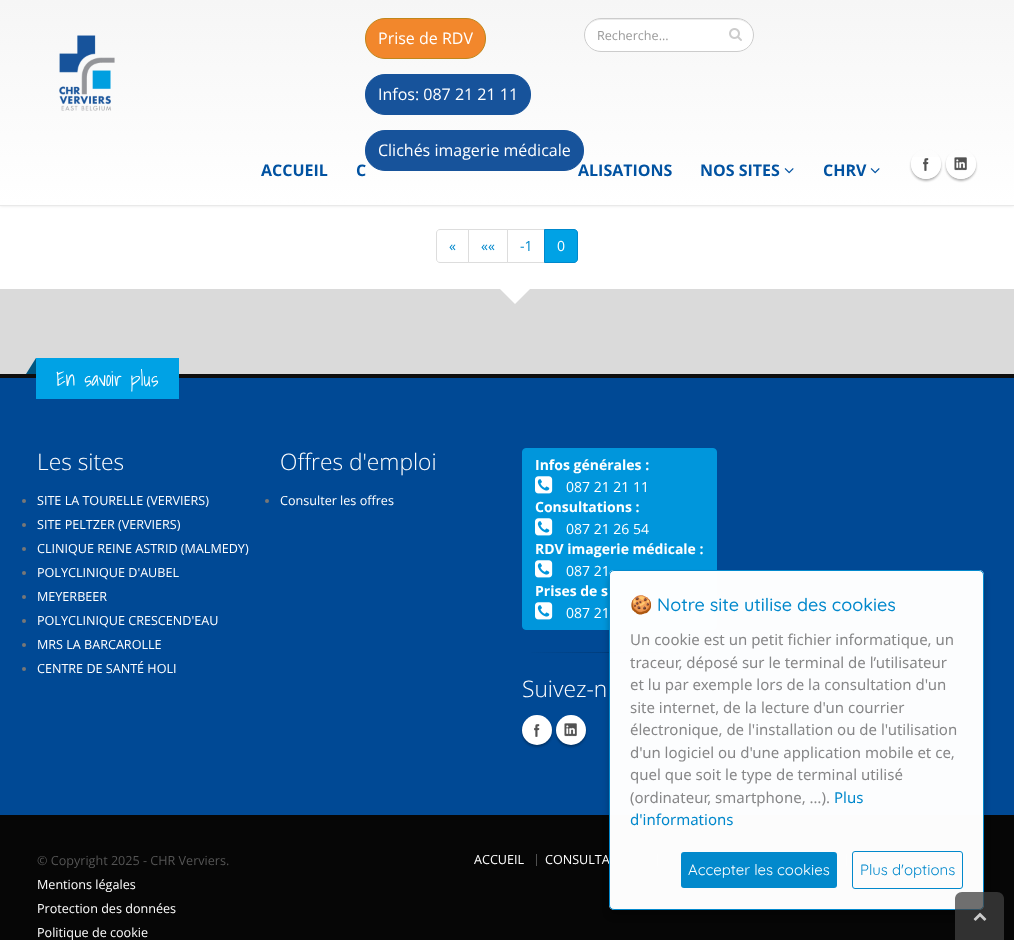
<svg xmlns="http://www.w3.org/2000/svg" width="1014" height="940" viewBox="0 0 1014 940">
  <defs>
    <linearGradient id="g1" gradientUnits="userSpaceOnUse" x1="507" y1="0" x2="507" y2="205"><stop offset="0" stop-color="#f6f6f6"/><stop offset="1" stop-color="#fff"/></linearGradient>
    <clipPath id="clip1"><path d="M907 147H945V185H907ZM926 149C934.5 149 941 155.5 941 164C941 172.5 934.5 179 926 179C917.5 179 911 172.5 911 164C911 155.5 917.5 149 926 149Z" clip-rule="evenodd"/></clipPath>
    <clipPath id="clip2"><path d="M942 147H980V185H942ZM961 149C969.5 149 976 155.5 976 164C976 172.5 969.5 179 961 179C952.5 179 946 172.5 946 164C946 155.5 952.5 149 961 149Z" clip-rule="evenodd"/></clipPath>
    <linearGradient id="g2" gradientUnits="userSpaceOnUse" x1="522" y1="653" x2="735" y2="653"><stop offset="0" stop-color="#004995"/><stop offset="0.5" stop-color="#003a77"/><stop offset="1" stop-color="#004995"/></linearGradient>
    <clipPath id="clip3"><path d="M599 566H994V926H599ZM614 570H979C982 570 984 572 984 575V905C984 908 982 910 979 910H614C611 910 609 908 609 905V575C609 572 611 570 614 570Z" clip-rule="evenodd"/></clipPath>
  </defs>
  <rect width="100%" height="100%" fill="#fff"/>
  <path d="M0 -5h1014v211H0z" fill="#0000001a" filter="blur(1.5px)"/>
  <path d="M0 0h1014v205H0z" fill="url(#g1)"/>
  <path d="M0 205h1014v1H0z" fill="#e9e9e9"/>
  <image x="59" y="35" width="56" height="76" href="img/1.png"/>
  <rect x="365.5" y="18.5" width="120" height="40" rx="19.5" fill="#f2872c" stroke="#c0861b"/>
  <rect x="365.5" y="74.5" width="165" height="40" rx="19.5" fill="#17539b" stroke="#17539b"/>
  <rect x="365.5" y="130.5" width="218" height="40" rx="19.5" fill="#17539b" stroke="#17539b"/>
  <rect x="584" y="18" width="170" height="34" rx="17" fill="#fff"/>
  <path d="M601 20H737C746 20 753 27 753 35C753 26 746 19 737 19H601C592 19 585 26 585 35C585 27 592 20 601 20Z" fill="#ececec"/>
  <rect x="584.5" y="18.5" width="169" height="33" rx="16.5" fill="none" stroke="#ccc"/>
  <image x="729" y="28" width="13" height="13" href="img/2.png"/>
  <image x="784" y="168" width="10" height="6" href="img/3.png"/>
  <image x="870" y="168" width="10" height="6" href="img/3.png"/>
  <g clip-path="url(#clip1)">
    <rect x="911" y="151" width="30" height="30" rx="15" fill="#0000004d" filter="blur(1px)"/>
  </g>
  <image x="911" y="157" width="30" height="22" href="img/4.png"/>
  <g clip-path="url(#clip2)">
    <rect x="946" y="151" width="30" height="30" rx="15" fill="#0000004d" filter="blur(1px)"/>
  </g>
  <image x="946" y="157" width="30" height="22" href="img/5.png"/>
  <path d="M440 229.5H468.5V262.5H440C438 262.5 436.5 261 436.5 259V233C436.5 231 438 229.5 440 229.5Z" fill="none" stroke="#ddd"/>
  <path d="M468.5 229.5h39v33H468.5z" fill="none" stroke="#ddd"/>
  <path d="M507.5 229.5h37v33H507.5z" fill="none" stroke="#ddd"/>
  <path d="M544.5 229.5H574C576 229.5 577.5 231 577.5 233V259C577.5 261 576 262.5 574 262.5H544.5Z" fill="#00a2e5" stroke="#08c"/>
  <path d="M0 289h1014v85H0z" fill="#dadada"/>
  <path d="M500 289H530L515 304Z" fill="#fff"/>
  <path d="M0 378h1014v437H0z" fill="#004995"/>
  <path d="M0 374h1014v4H0z" fill="#0e0e0e"/>
  <path d="M36 358h143v41H36z" fill="#00a2e5"/>
  <path d="M36 358V374H26Z" fill="#005580"/>
  <circle cx="24" cy="501" r="2" fill="#777"/>
  <circle cx="24" cy="525" r="2" fill="#777"/>
  <circle cx="24" cy="549" r="2" fill="#777"/>
  <circle cx="24" cy="573" r="2" fill="#777"/>
  <circle cx="24" cy="597" r="2" fill="#777"/>
  <circle cx="24" cy="621" r="2" fill="#777"/>
  <circle cx="24" cy="645" r="2" fill="#777"/>
  <circle cx="24" cy="669" r="2" fill="#777"/>
  <circle cx="267" cy="501" r="2" fill="#777"/>
  <rect x="522.5" y="448.5" width="194" height="181" rx="3.5" fill="#0096dc" stroke="#0096dc"/>
  <image x="535" y="476" width="18" height="18" href="img/6.png"/>
  <image x="535" y="518" width="18" height="18" href="img/6.png"/>
  <image x="535" y="560" width="18" height="18" href="img/6.png"/>
  <image x="535" y="602" width="18" height="18" href="img/6.png"/>
  <path d="M531 652h195v1H531z" fill="url(#g2)"/>
  <rect x="522" y="717" width="30" height="30" rx="15" fill="#0000004d" filter="blur(1px)"/>
  <image x="522" y="715" width="30" height="30" href="img/7.png"/>
  <rect x="556" y="717" width="30" height="30" rx="15" fill="#0000004d" filter="blur(1px)"/>
  <image x="556" y="715" width="30" height="30" href="img/8.png"/>
  <path d="M0 815h1014v125H0z" fill="#060606"/>
  <path d="M536 854h1v12H536z" fill="#505050"/>
  <path d="M657 854h1v12H657z" fill="#505050"/>
  <path d="M846 854h1v12H846z" fill="#505050"/>
  <g clip-path="url(#clip3)">
    <rect x="609" y="576" width="375" height="340" rx="5" fill="#00000040" filter="blur(3px)"/>
  </g>
  <g font-family="Open Sans" font-size="16" fill="#fff">
    <text x="378" y="44">Prise de RDV</text>
    <text x="378" y="100">Infos: 087 21 21 11</text>
    <text x="378" y="156">Clichés imagerie médicale</text>
  </g>
  <text x="597" y="40" font-family="Open Sans" font-size="12.6" fill="#999">Recherche...</text>
  <g font-family="Open Sans" font-size="16" font-weight="bold" fill="#0152a1">
    <text x="261" y="176">ACCUEIL</text>
    <text x="356" y="176">C</text>
    <text x="578" y="176">ALISATIONS</text>
    <text x="700" y="176">NOS SITES</text>
    <text x="823" y="176">CHRV</text>
  </g>
  <g font-family="Open Sans" font-size="14" fill="#08c">
    <text x="449" y="251">«</text>
    <text x="481" y="251">««</text>
    <text x="520" y="251">-1</text>
  </g>
  <text x="557" y="251" font-family="Open Sans" font-size="14" fill="#fff">0</text>
  <text x="56" y="386" font-family="Shadows Into Light" font-size="20" font-weight="300" fill="#fff">En savoir plus</text>
  <text x="37" y="470" font-family="Open Sans" font-size="22.75" font-weight="300" fill="#fff">Les sites</text>
  <g font-family="Open Sans" font-size="12.6" fill="#fff">
    <text x="37" y="505">SITE LA TOURELLE (VERVIERS)</text>
    <text x="37" y="529">SITE PELTZER (VERVIERS)</text>
    <text x="37" y="553">CLINIQUE REINE ASTRID (MALMEDY)</text>
    <text x="37" y="577">POLYCLINIQUE D'AUBEL</text>
    <text x="37" y="601">MEYERBEER</text>
    <text x="37" y="625">POLYCLINIQUE CRESCEND'EAU</text>
    <text x="37" y="649">MRS LA BARCAROLLE</text>
    <text x="37" y="673">CENTRE DE SANTÉ HOLI</text>
  </g>
  <text x="280" y="470" font-family="Open Sans" font-size="22.75" font-weight="300" fill="#fff">Offres d'emploi</text>
  <text x="280" y="505" font-family="Open Sans" font-size="12.6" fill="#fff">Consulter les offres</text>
  <text x="535" y="470" font-family="Open Sans" font-size="14" font-weight="bold" fill="#fff">Infos générales :</text>
  <text x="566" y="492" font-family="Open Sans" font-size="14" fill="#fff">087 21 21 11</text>
  <text x="535" y="512" font-family="Open Sans" font-size="14" font-weight="bold" fill="#fff">Consultations :</text>
  <text x="566" y="534" font-family="Open Sans" font-size="14" fill="#fff">087 21 26 54</text>
  <text x="535" y="554" font-family="Open Sans" font-size="14" font-weight="bold" fill="#fff">RDV imagerie médicale :</text>
  <text x="566" y="576" font-family="Open Sans" font-size="14" fill="#fff">087 21</text>
  <text x="535" y="596" font-family="Open Sans" font-size="14" font-weight="bold" fill="#fff">Prises de s</text>
  <text x="566" y="618" font-family="Open Sans" font-size="14" fill="#fff">087 21</text>
  <text x="522" y="697" font-family="Open Sans" font-size="22.75" font-weight="300" fill="#fff">Suivez-n</text>
  <text x="37" y="865" font-family="Open Sans" font-size="12.6" fill="#555">© Copyright 2025 - CHR Verviers.</text>
  <g font-family="Open Sans" font-size="12.6" fill="#fff">
    <text x="37" y="889">Mentions légales</text>
    <text x="37" y="913">Protection des données</text>
    <text x="37" y="937">Politique de cookie</text>
    <text x="474" y="864">ACCUEIL</text>
    <text x="545" y="864">CONSULTA</text>
  </g>
  <rect x="609" y="570" width="375" height="340" rx="5" fill="#fffffffc"/>
  <rect x="609.5" y="570.5" width="374" height="339" rx="4.5" fill="none" stroke="#0088ccfc"/>
  <text x="630" y="611" font-family="Noto Color Emoji" font-size="18" fill="#08c">🍪</text>
  <text x="657" y="611" font-family="Quicksand" font-size="18" font-weight="500" fill="#08c">Notre site utilise des cookies</text>
  <g font-family="Noto Sans" font-size="15" fill="#878788">
    <text x="630" y="645">Un cookie est un petit fichier informatique, un</text>
    <text x="630" y="668">traceur, déposé sur le terminal de l’utilisateur</text>
    <text x="630" y="690">et lu par exemple lors de la consultation d'un</text>
    <text x="630" y="713">site internet, de la lecture d'un courrier</text>
    <text x="630" y="735">électronique, de l'installation ou de l'utilisation</text>
    <text x="630" y="758">d'un logiciel ou d'une application mobile et ce,</text>
    <text x="630" y="780">quel que soit le type de terminal utilisé</text>
    <text x="630" y="803">(ordinateur, smartphone, …).</text>
  </g>
  <g font-family="Noto Sans" font-size="15" fill="#08c">
    <text x="834" y="803">Plus</text>
    <text x="630" y="825">d'informations</text>
  </g>
  <rect x="681" y="852" width="156" height="36" rx="3" fill="#0289cc"/>
  <text x="688" y="875" font-family="Quicksand" font-size="15" fill="#fff">Accepter les cookies</text>
  <rect x="852.5" y="851.5" width="110" height="37" rx="2.5" fill="none" stroke="#0289cc"/>
  <text x="860" y="875" font-family="Quicksand" font-size="15" fill="#08c">Plus d'options</text>
  <path d="M962 892H997C1001 892 1004 895 1004 899V940H955V899C955 895 958 892 962 892Z" fill="#404040bf"/>
  <image x="973" y="912" width="14" height="9" href="img/9.png"/>
</svg>
